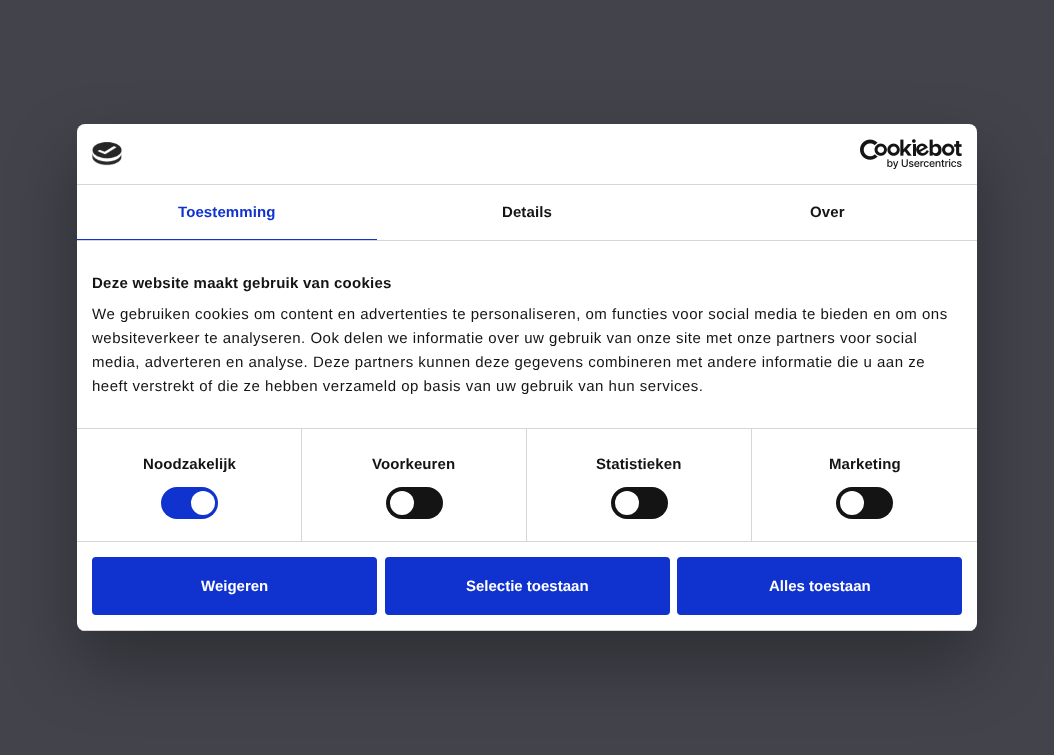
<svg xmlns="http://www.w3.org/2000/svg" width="1054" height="755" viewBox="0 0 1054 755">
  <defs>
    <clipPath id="clip1"><rect x="77" y="124" width="900" height="507" rx="8"/></clipPath>
  </defs>
  <rect width="100%" height="100%" fill="#42434b"/>
  <rect x="77" y="156" width="900" height="507" rx="8" fill="#0000004d" filter="blur(34px)"/>
  <rect x="77" y="124" width="900" height="507" rx="8" fill="#fff"/>
  <path d="M77 184h900v1H77z" fill="#d6d6d6"/>
  <image x="92" y="142" width="30" height="24" href="img/1.png"/>
  <image x="860" y="139" width="102" height="30" href="img/2.png"/>
  <path d="M77 240h900v1H77z" fill="#d6d6d6"/>
  <path d="M77 239h300v1H77z" fill="#1032cf"/>
  <path d="M77 428h900v1H77z" fill="#d6d6d6"/>
  <path d="M77 541h900v1H77z" fill="#d6d6d6"/>
  <path d="M301 429h1v112H301z" fill="#d6d6d6"/>
  <rect x="161" y="487" width="57" height="32" rx="16" fill="#1032cf"/>
  <circle cx="203" cy="503" r="12" fill="#fff"/>
  <path d="M526 429h1v112H526z" fill="#d6d6d6"/>
  <rect x="386" y="487" width="57" height="32" rx="16" fill="#141414"/>
  <circle cx="402" cy="503" r="12" fill="#fff"/>
  <path d="M751 429h1v112H751z" fill="#d6d6d6"/>
  <rect x="611" y="487" width="57" height="32" rx="16" fill="#141414"/>
  <circle cx="627" cy="503" r="12" fill="#fff"/>
  <rect x="836" y="487" width="57" height="32" rx="16" fill="#141414"/>
  <circle cx="852" cy="503" r="12" fill="#fff"/>
  <g clip-path="url(#clip1)">
    <path d="M77 630h900v1H77z" fill="#d6d6d6"/>
  </g>
  <rect x="93" y="558" width="283" height="56" rx="3" fill="#1032cf" stroke="#1032cf" stroke-width="2"/>
  <rect x="386" y="558" width="283" height="56" rx="3" fill="#1032cf" stroke="#1032cf" stroke-width="2"/>
  <rect x="678" y="558" width="283" height="56" rx="3" fill="#1032cf" stroke="#1032cf" stroke-width="2"/>
  <text x="178" y="217" font-family="Liberation Sans" font-size="15" font-weight="bold" letter-spacing="0.1" fill="#1032cf">Toestemming</text>
  <g font-family="Liberation Sans" font-size="15" font-weight="bold" letter-spacing="0.1" fill="#141414">
    <text x="502" y="217">Details</text>
    <text x="810" y="217">Over</text>
  </g>
  <text x="92" y="288" font-family="Liberation Sans" font-size="15" font-weight="bold" letter-spacing="0.25" fill="#141414">Deze website maakt gebruik van cookies</text>
  <g font-family="Liberation Sans" font-size="15" letter-spacing="0.5" fill="#141414">
    <text x="92" y="319">We gebruiken cookies om content en advertenties te personaliseren, om functies voor social media te bieden en om ons</text>
    <text x="92" y="343">websiteverkeer te analyseren. Ook delen we informatie over uw gebruik van onze site met onze partners voor social</text>
    <text x="92" y="367">media, adverteren en analyse. Deze partners kunnen deze gegevens combineren met andere informatie die u aan ze</text>
    <text x="92" y="391">heeft verstrekt of die ze hebben verzameld op basis van uw gebruik van hun services.</text>
  </g>
  <g font-family="Liberation Sans" font-size="15" font-weight="bold" letter-spacing="0.1" fill="#141414">
    <text x="143" y="469">Noodzakelijk</text>
    <text x="372" y="469">Voorkeuren</text>
    <text x="596" y="469">Statistieken</text>
    <text x="829" y="469">Marketing</text>
  </g>
  <g font-family="Liberation Sans" font-size="15" font-weight="bold" fill="#fff">
    <text x="201" y="591">Weigeren</text>
    <text x="466" y="591">Selectie toestaan</text>
    <text x="769" y="591">Alles toestaan</text>
  </g>
</svg>
